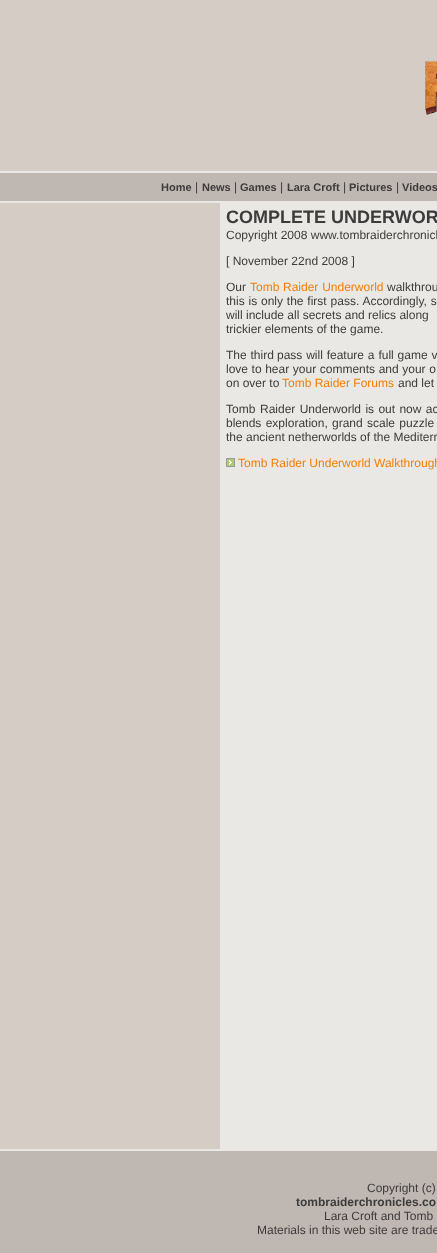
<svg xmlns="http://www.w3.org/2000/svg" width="437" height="1253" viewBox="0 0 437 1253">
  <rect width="100%" height="100%" fill="#d5ccc5"/>
  <image x="425" y="61" width="12" height="54" href="img/1.png"/>
  <path d="M0 171h437v2H0z" fill="#e9e8e4"/>
  <path d="M0 173h437v28H0z" fill="#bfb7b1"/>
  <path d="M0 201h437v2H0z" fill="#e9e8e4"/>
  <path d="M220 203h217v946H220z" fill="#e9e8e4"/>
  <image x="226" y="458" width="9" height="9" href="img/2.png"/>
  <path d="M0 1149h437v2H0z" fill="#e9e8e4"/>
  <path d="M0 1151h437v102H0z" fill="#bfb7b1"/>
  <text x="161" y="191" font-family="Liberation Sans" font-size="11" font-weight="bold" fill="#3d3c3d">Home</text>
  <text x="195" y="191" font-family="Liberation Sans" font-size="12" fill="#3d3c3d">|</text>
  <text x="202" y="191" font-family="Liberation Sans" font-size="11" font-weight="bold" fill="#3d3c3d">News</text>
  <text x="234" y="191" font-family="Liberation Sans" font-size="12" fill="#3d3c3d">|</text>
  <text x="240" y="191" font-family="Liberation Sans" font-size="11" font-weight="bold" fill="#3d3c3d">Games</text>
  <text x="280" y="191" font-family="Liberation Sans" font-size="12" fill="#3d3c3d">|</text>
  <text x="287" y="191" font-family="Liberation Sans" font-size="11" font-weight="bold" fill="#3d3c3d">Lara Croft</text>
  <text x="343" y="191" font-family="Liberation Sans" font-size="12" fill="#3d3c3d">|</text>
  <text x="349" y="191" font-family="Liberation Sans" font-size="11" font-weight="bold" fill="#3d3c3d">Pictures</text>
  <text x="396" y="191" font-family="Liberation Sans" font-size="12" fill="#3d3c3d">|</text>
  <text x="402" y="191" font-family="Liberation Sans" font-size="11" font-weight="bold" fill="#3d3c3d">Videos</text>
  <text x="226" y="223" font-family="Liberation Sans" font-size="18" font-weight="bold" fill="#3d3c3d">COMPLETE UNDERWOR</text>
  <g font-family="Liberation Sans" font-size="12" fill="#3d3c3d">
    <text x="226" y="239">Copyright 2008 www.tombraiderchronicl</text>
    <text x="226" y="265">[ November 22nd 2008 ]</text>
    <text x="226" y="291">Our</text>
  </g>
  <g font-family="Liberation Sans" font-size="12" fill="#f57d05">
    <text x="250" y="291">Tomb</text>
    <text x="283" y="291" word-spacing="0.5">Raider Underworld</text>
  </g>
  <g font-family="Liberation Sans" font-size="12" fill="#3d3c3d">
    <text x="387" y="291">walkthrou</text>
    <text x="226" y="305" word-spacing="0.5">this is only the first pass. Accordingly, s</text>
    <text x="226" y="319">will include all secrets and relics along</text>
    <text x="226" y="333">trickier elements of the game.</text>
    <text x="226" y="359" word-spacing="0.5">The third</text>
    <text x="277" y="359" word-spacing="0.5">pass will feature a full game v</text>
    <text x="226" y="373" word-spacing="0.25">love to hear your comments and your o</text>
    <text x="226" y="387">on over to</text>
  </g>
  <text x="282" y="387" font-family="Liberation Sans" font-size="12" fill="#f57d05">Tomb Raider Forums</text>
  <g font-family="Liberation Sans" font-size="12" fill="#3d3c3d">
    <text x="398" y="387">and let</text>
    <text x="226" y="413">Tomb</text>
    <text x="260" y="413" word-spacing="1">Raider Underworld is out now ac</text>
    <text x="226" y="427" word-spacing="1">blends exploration,</text>
    <text x="332" y="427" word-spacing="1">grand scale puzzle</text>
    <text x="226" y="441">the ancient netherworlds of the Mediterr</text>
  </g>
  <text x="238" y="467" font-family="Liberation Sans" font-size="12" fill="#f57d05">Tomb Raider Underworld Walkthrough</text>
  <text x="367" y="1192" font-family="Liberation Sans" font-size="12" fill="#3d3c3d">Copyright (c)</text>
  <text x="296" y="1206" font-family="Liberation Sans" font-size="12" font-weight="bold" fill="#3d3c3d">tombraiderchronicles.co</text>
  <g font-family="Liberation Sans" font-size="12" fill="#3d3c3d">
    <text x="324" y="1220">Lara Croft and Tomb</text>
    <text x="257" y="1234">Materials in this web site are trade</text>
  </g>
</svg>
